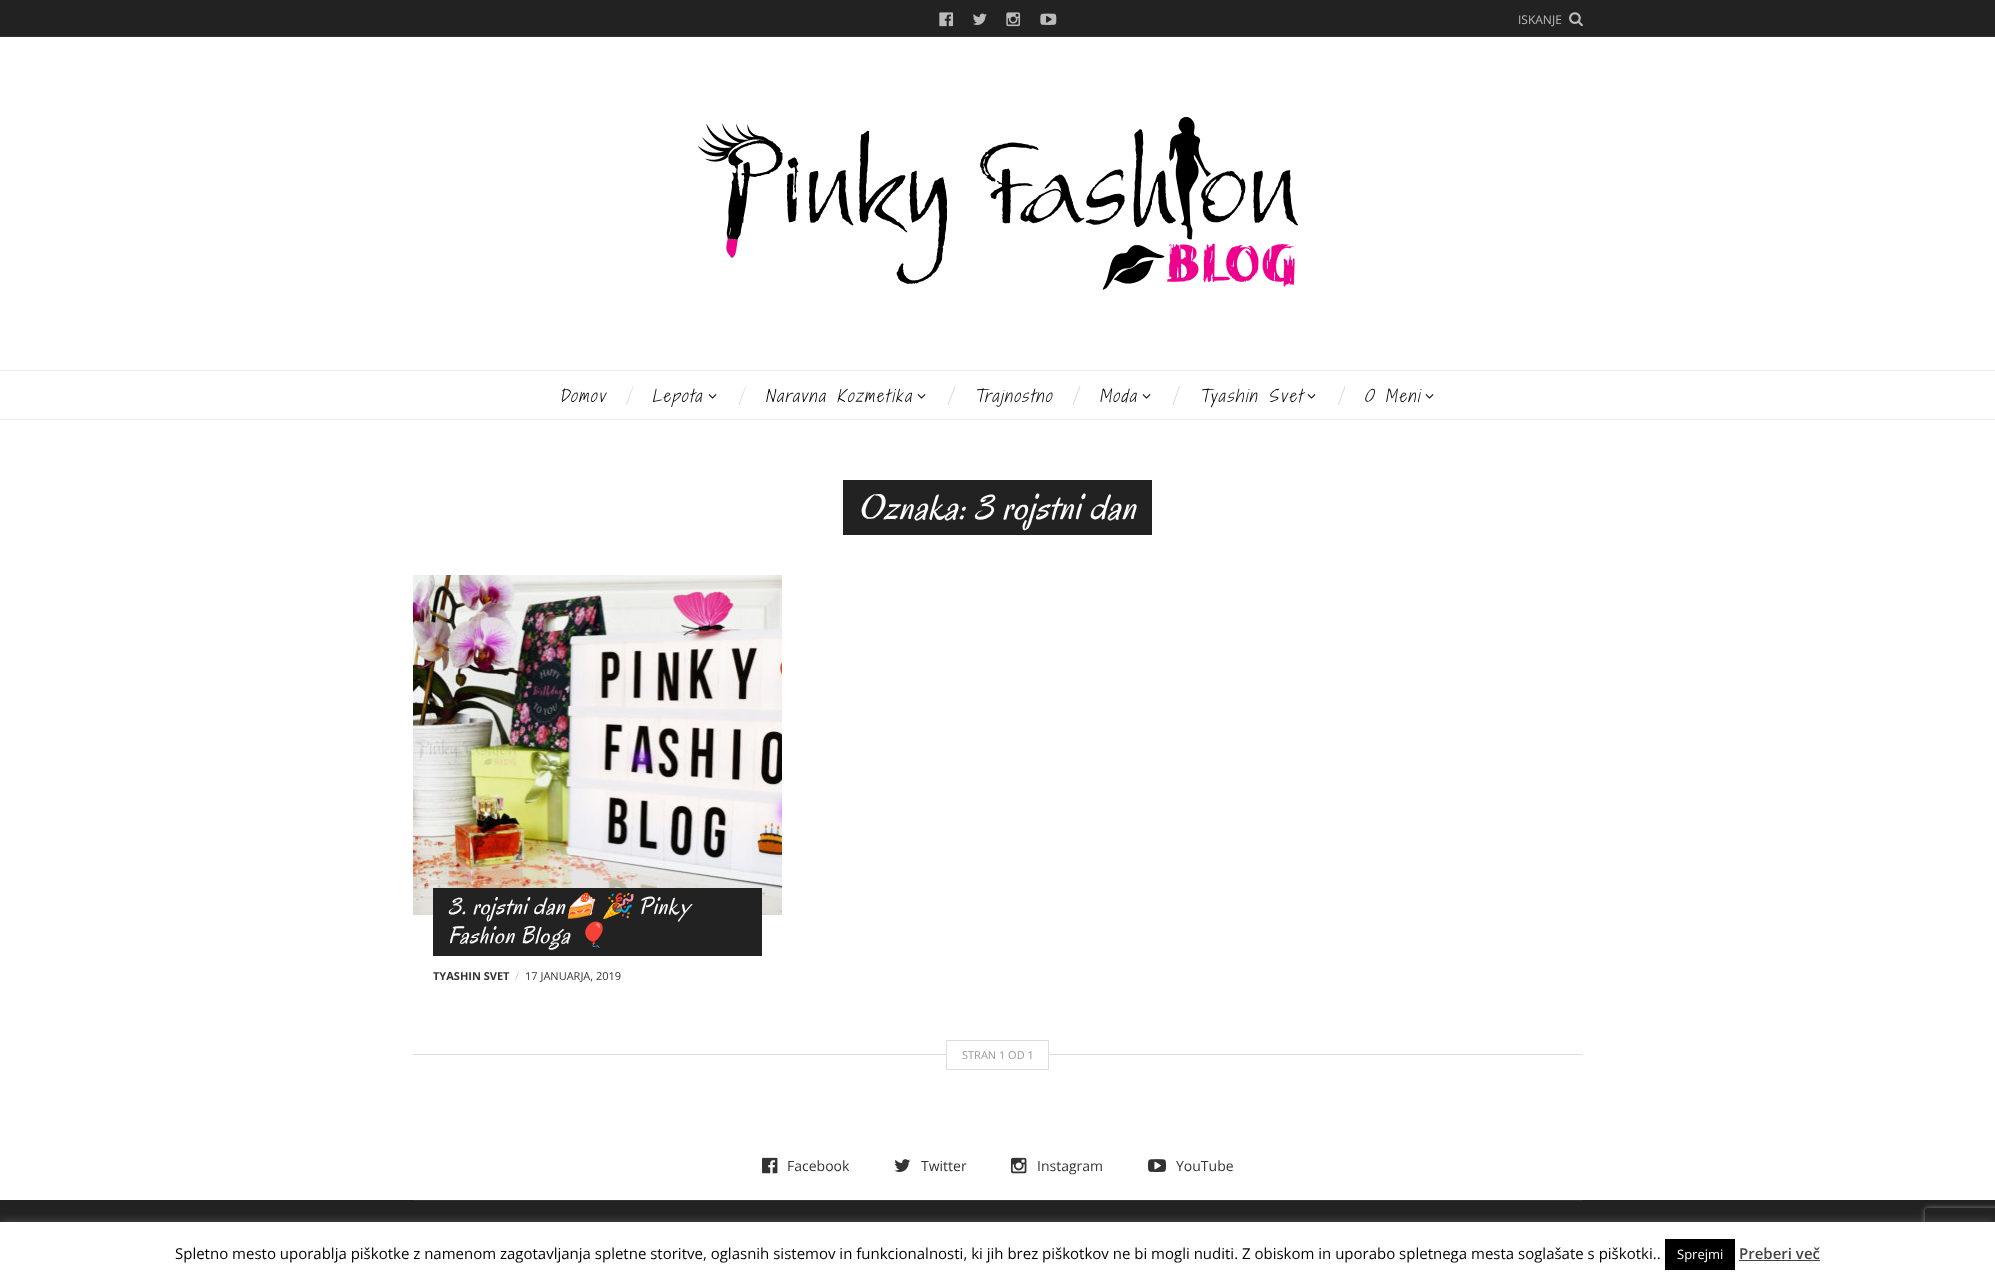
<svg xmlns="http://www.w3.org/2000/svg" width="1995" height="1282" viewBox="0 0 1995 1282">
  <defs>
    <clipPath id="clip1"><path d="M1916 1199H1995V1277H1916ZM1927 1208H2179C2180 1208 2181 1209 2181 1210V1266C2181 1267 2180 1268 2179 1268H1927C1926 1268 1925 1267 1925 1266V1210C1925 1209 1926 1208 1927 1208Z" clip-rule="evenodd"/></clipPath>
  </defs>
  <rect width="100%" height="100%" fill="#fff"/>
  <path d="M0 0h1995v36H0z" fill="#222"/>
  <path d="M0 36h1995v1H0z" fill="#333"/>
  <image x="939" y="12" width="15" height="15" href="img/1.png"/>
  <image x="973" y="13" width="14" height="12" href="img/2.png"/>
  <image x="1006" y="12" width="15" height="15" href="img/3.png"/>
  <image x="1040" y="13" width="17" height="12" href="img/4.png"/>
  <image x="1569" y="12" width="14" height="15" href="img/5.png"/>
  <image x="698" y="117" width="600" height="173" href="img/6.png"/>
  <path d="M0 370h1995v1H0z" fill="#eee"/>
  <path d="M0 419h1995v1H0z" fill="#eee"/>
  <path d="M633 386L633.5 386.5L627 405L626 404.5Z" fill="#ddd"/>
  <image x="708" y="394" width="9" height="5" href="img/7.png"/>
  <path d="M745.5 386L746 386.5L739.5 405L738.5 404.5Z" fill="#ddd"/>
  <image x="917" y="394" width="9" height="5" href="img/7.png"/>
  <path d="M954.5 386L955.5 386.5L948.5 405L947.5 404.5Z" fill="#ddd"/>
  <path d="M1079.5 386L1080.5 386.5L1073.5 405L1072.5 404.5Z" fill="#ddd"/>
  <image x="1142" y="394" width="9" height="5" href="img/7.png"/>
  <path d="M1179 386L1180 386.5L1173.5 405L1172.5 404.5Z" fill="#ddd"/>
  <image x="1307" y="394" width="9" height="5" href="img/7.png"/>
  <path d="M1344.5 386L1345.5 386.5L1339 405L1338 404.5Z" fill="#ddd"/>
  <image x="1425" y="394" width="9" height="5" href="img/7.png"/>
  <path d="M843 480h309v55H843z" fill="#222"/>
  <image x="413" y="575" width="369" height="340" href="img/8.png"/>
  <path d="M433 888h329v68H433z" fill="#222"/>
  <path d="M413 1054h1170v1H413z" fill="#ddd"/>
  <path d="M947 1054h101v1H947z" fill="#fff"/>
  <path d="M946.5 1040.5h102v29H946.5z" fill="none" stroke="#ddd"/>
  <image x="762" y="1157" width="16" height="17" href="img/9.png"/>
  <image x="894" y="1159" width="17" height="13" href="img/10.png"/>
  <image x="1011" y="1157" width="16" height="17" href="img/11.png"/>
  <image x="1148" y="1159" width="18" height="13" href="img/12.png"/>
  <path d="M0 1200h1995v22H0z" fill="#222"/>
  <path d="M413 1200h1170v1H413z" fill="#333"/>
  <path d="M0 1221h1995v60H0z" fill="#acabab4d" filter="blur(5px)"/>
  <g clip-path="url(#clip1)">
    <rect x="1925" y="1208" width="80" height="60" rx="2" fill="#808080" filter="blur(2.5px)"/>
  </g>
  <path d="M0 1222h1995v60H0z" fill="#fff"/>
  <path d="M1665 1239h70v31H1665z" fill="#000"/>
  <path d="M1739 1260h81v1H1739z" fill="#444"/>
  <text x="1518" y="24" font-family="Open Sans" font-size="12" fill="#bbb">ISKANJE</text>
  <g font-family="Shadows Into Light Two" font-size="16" font-weight="300" font-style="italic" letter-spacing="2" fill="#000">
    <text x="559" y="402">Domov</text>
    <text x="652" y="402">Lepota</text>
    <text x="765" y="402">Naravna Kozmetika</text>
    <text x="974" y="402">Trajnostno</text>
    <text x="1099" y="402">Moda</text>
    <text x="1199" y="402">Tyashin Svet</text>
    <text x="1364" y="402">O Meni</text>
  </g>
  <text x="858" y="519" font-family="Oregano" font-size="36" font-style="italic" letter-spacing="1" fill="#fff">Oznaka: 3 rojstni dan</text>
  <text x="448" y="914" font-family="Oregano" font-size="24" font-style="italic" letter-spacing="1" fill="#fff">3. rojstni dan</text>
  <g font-family="Noto Color Emoji" font-size="24" font-style="italic" letter-spacing="1" fill="#fff">
    <text x="565" y="914">🍰</text>
    <text x="602" y="914">🎉</text>
  </g>
  <g font-family="Oregano" font-size="24" font-style="italic" letter-spacing="1" fill="#fff">
    <text x="638" y="914">Pinky</text>
    <text x="448" y="943">Fashion Bloga</text>
  </g>
  <text x="576" y="943" font-family="Noto Color Emoji" font-size="24" font-style="italic" letter-spacing="1" fill="#fff">🎈</text>
  <text x="433" y="980" font-family="Open Sans" font-size="11" font-weight="bold" fill="#333">TYASHIN SVET</text>
  <text x="515" y="980" font-family="Open Sans" font-size="11" fill="#ccc">/</text>
  <text x="525" y="980" font-family="Open Sans" font-size="11" fill="#333">17 JANUARJA, 2019</text>
  <text x="962" y="1059" font-family="Open Sans" font-size="11" fill="#999">STRAN 1 OD 1</text>
  <g font-family="Open Sans" font-size="14" fill="#333">
    <text x="787" y="1171">Facebook</text>
    <text x="921" y="1171">Twitter</text>
    <text x="1037" y="1171">Instagram</text>
    <text x="1176" y="1171">YouTube</text>
  </g>
  <text x="175" y="1259" font-family="Open Sans" font-size="15" fill="#000">Spletno mesto uporablja piškotke z namenom zagotavljanja spletne storitve, oglasnih sistemov in funkcionalnosti, ki jih brez piškotkov ne bi mogli nuditi. Z obiskom in uporabo spletnega mesta soglašate s piškotki..</text>
  <text x="1677" y="1259" font-family="Open Sans" font-size="13" fill="#fff">Sprejmi</text>
  <text x="1739" y="1259" font-family="Open Sans" font-size="15" font-weight="600" fill="#444">Preberi več</text>
</svg>
